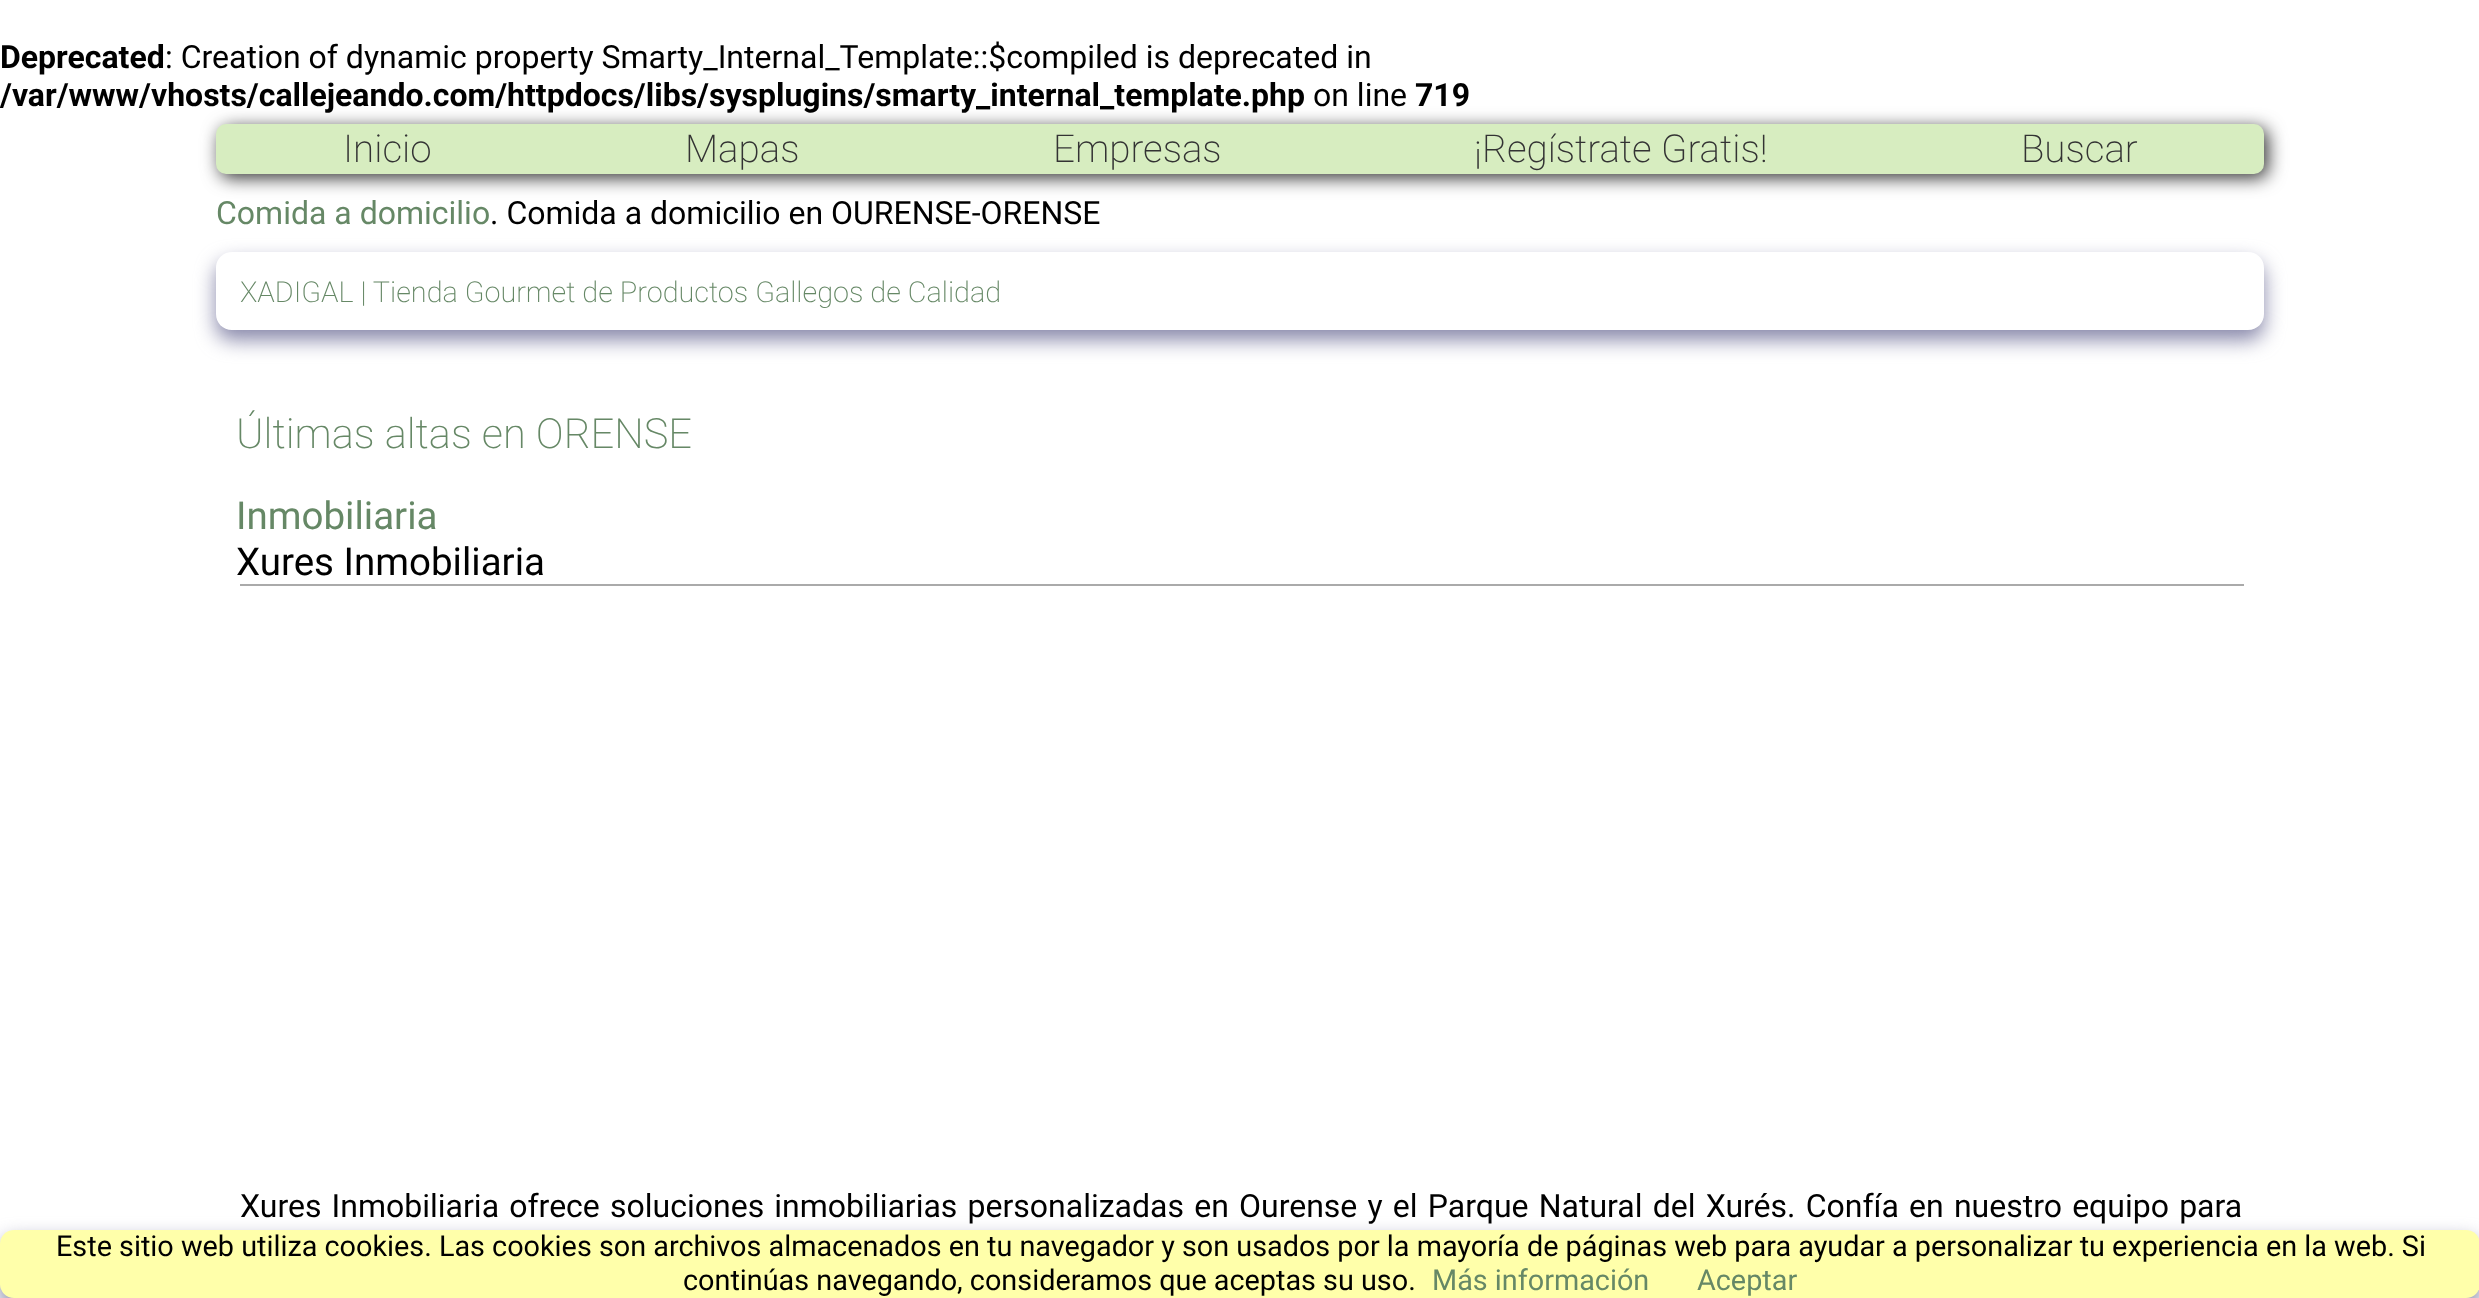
<svg xmlns="http://www.w3.org/2000/svg" width="2479" height="1298" viewBox="0 0 2479 1298">
  <defs>
    <clipPath id="clip1"><path d="M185 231H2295V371H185ZM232 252H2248C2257 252 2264 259 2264 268V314C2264 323 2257 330 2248 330H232C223 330 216 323 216 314V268C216 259 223 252 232 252Z" clip-rule="evenodd"/></clipPath>
  </defs>
  <rect width="100%" height="100%" fill="#fff"/>
  <rect x="220" y="128" width="2048" height="50" rx="10" fill="#333" filter="blur(9px)"/>
  <rect x="216" y="124" width="2048" height="50" rx="10" fill="#d7edc0"/>
  <g clip-path="url(#clip1)">
    <rect x="216" y="262" width="2048" height="78" rx="16" fill="#88a" filter="blur(10px)"/>
  </g>
  <path d="M240 584h2004v2H240z" fill="#aaa"/>
  <rect y="1240" width="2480" height="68" rx="14" fill="#88a" filter="blur(10px)"/>
  <rect y="1230" width="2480" height="68" rx="14" fill="#ffa"/>
  <text x="0" y="68" font-family="Roboto" font-size="32" font-weight="bold" fill="#000">Deprecated</text>
  <text x="165" y="68" font-family="Roboto" font-size="32" fill="#000">: Creation of dynamic property Smarty_Internal_Template::$compiled is deprecated in</text>
  <text x="0" y="106" font-family="Roboto" font-size="32" font-weight="bold" fill="#000">/var/www/vhosts/callejeando.com/httpdocs/libs/sysplugins/smarty_internal_template.php</text>
  <text x="1313" y="106" font-family="Roboto" font-size="32" fill="#000">on line</text>
  <text x="1415" y="106" font-family="Roboto" font-size="32" font-weight="bold" fill="#000">719</text>
  <g font-family="Roboto" font-size="38.5" font-weight="200" fill="#333">
    <text x="343" y="162">Inicio</text>
    <text x="685" y="162">Mapas</text>
    <text x="1053" y="162">Empresas</text>
    <text x="1474" y="162">¡Regístrate Gratis!</text>
    <text x="2021" y="162">Buscar</text>
  </g>
  <text x="216" y="224" font-family="Roboto" font-size="32" fill="#686">Comida a domicilio</text>
  <text x="490" y="224" font-family="Roboto" font-size="32" fill="#000">. Comida a domicilio en OURENSE-ORENSE</text>
  <text x="240" y="302" font-family="Roboto" font-size="28.8" font-weight="200" fill="#686">XADIGAL | Tienda Gourmet de Productos Gallegos de Calidad</text>
  <text x="236" y="448" font-family="Roboto" font-size="41.6" font-weight="200" fill="#686">Últimas altas en ORENSE</text>
  <text x="236" y="529" font-family="Roboto" font-size="38.5" fill="#686">Inmobiliaria</text>
  <text x="236" y="575" font-family="Roboto" font-size="38.5" fill="#000">Xures Inmobiliaria</text>
  <text x="240" y="1217" word-spacing="2.25" font-family="Roboto" font-size="32" fill="#000">Xures Inmobiliaria ofrece soluciones inmobiliarias personalizadas en Ourense y el Parque Natural del Xurés. Confía en nuestro equipo para</text>
  <g font-family="Roboto" font-size="28.8" fill="#000">
    <text x="56" y="1256">Este sitio web utiliza cookies. Las cookies son archivos almacenados en tu navegador y son usados por la mayoría de páginas web para ayudar a personalizar tu experiencia en la web. Si</text>
    <text x="683" y="1290">continúas navegando, consideramos que aceptas su uso.</text>
  </g>
  <g font-family="Roboto" font-size="28.8" fill="#686">
    <text x="1432" y="1290">Más información</text>
    <text x="1697" y="1290">Aceptar</text>
  </g>
</svg>
